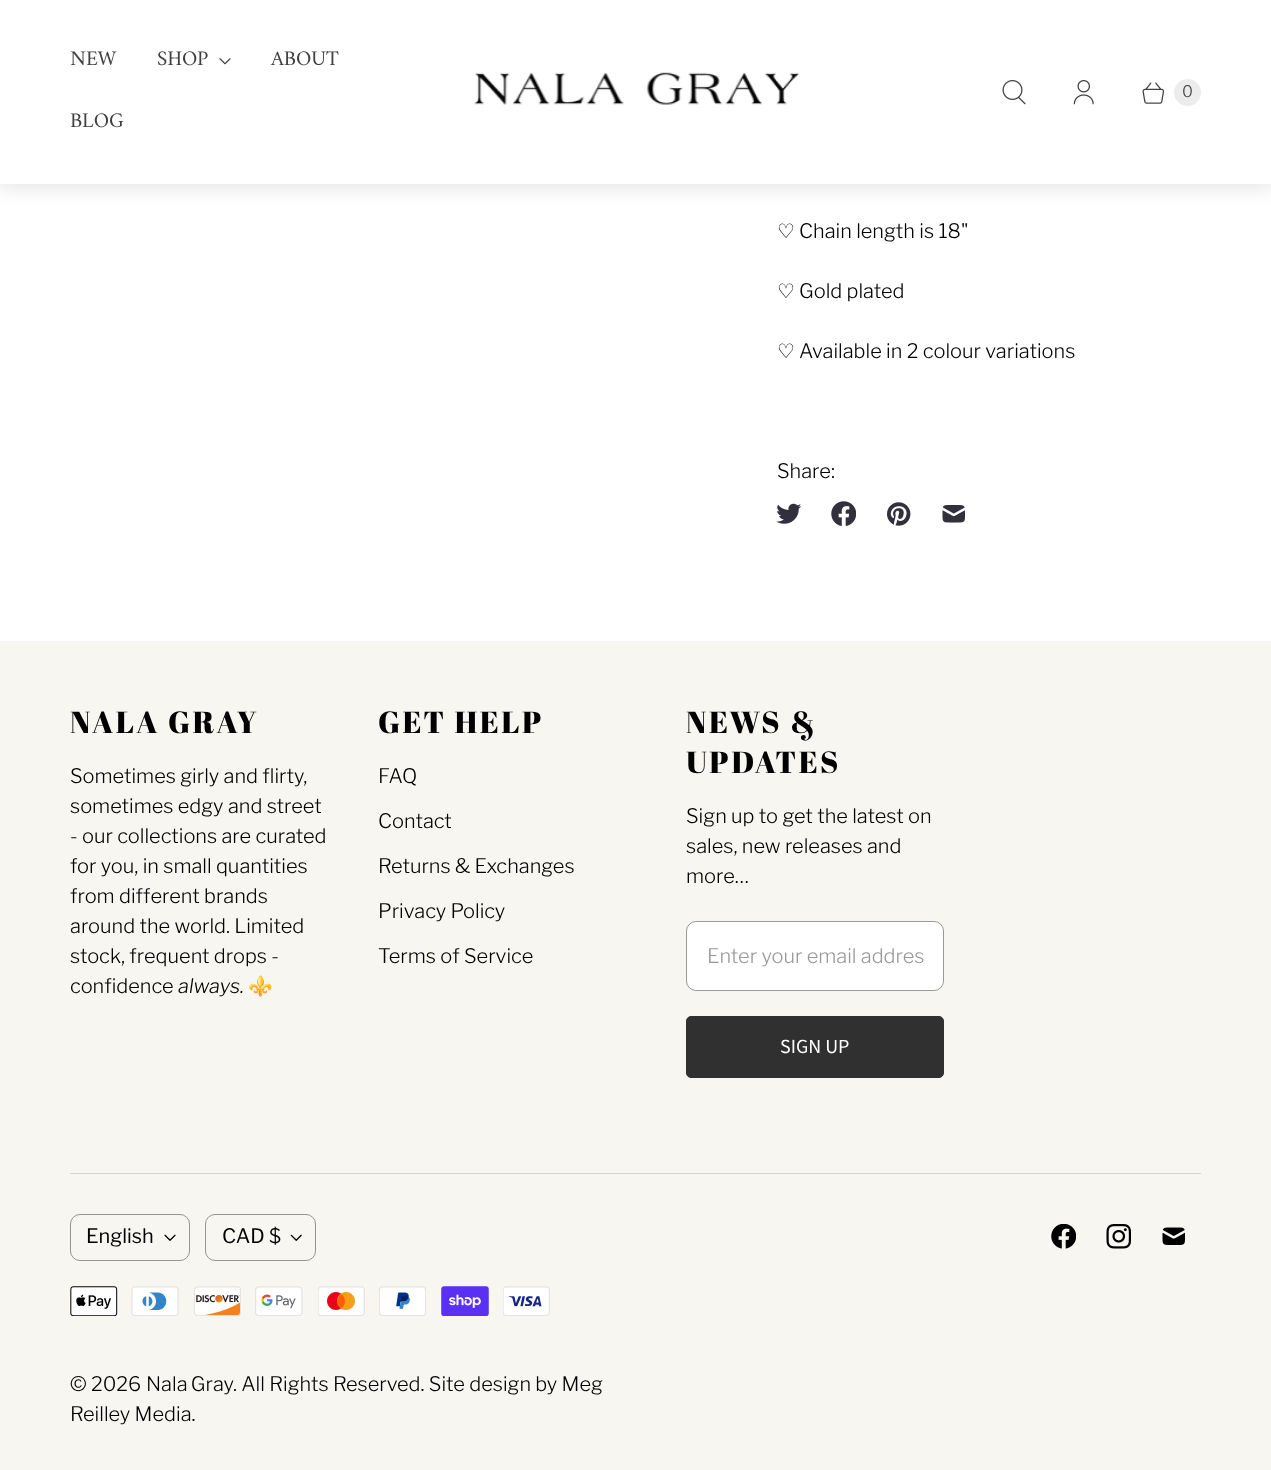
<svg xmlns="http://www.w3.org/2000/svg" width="1271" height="1470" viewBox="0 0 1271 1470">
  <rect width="100%" height="100%" fill="#fff"/>
  <path d="M-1 -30h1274v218H-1z" fill="#0000001a" filter="blur(10px)"/>
  <path d="M0 0h1271v184H0z" fill="#fff"/>
  <image x="219" y="58" width="12" height="7" href="img/1.png"/>
  <image x="474" y="72" width="325" height="33" href="img/2.png"/>
  <image x="1002" y="80" width="24" height="25" href="img/3.png"/>
  <image x="1073" y="80" width="21" height="25" href="img/4.png"/>
  <image x="1142" y="82" width="23" height="22" href="img/5.png"/>
  <circle cx="1187.5" cy="92.5" r="13.5" fill="#ececec"/>
  <image x="776" y="503" width="25" height="21" href="img/6.png"/>
  <image x="831" y="501" width="25" height="25" href="img/7.png"/>
  <image x="887" y="502" width="24" height="24" href="img/8.png"/>
  <image x="942" y="505" width="23" height="18" href="img/9.png"/>
  <path d="M0 641h1271v829H0z" fill="#f7f6f1"/>
  <rect x="686" y="921" width="258" height="70" rx="10" fill="#fff"/>
  <rect x="686.5" y="921.5" width="257" height="69" rx="9.5" fill="none" stroke="#00000066"/>
  <rect x="686.5" y="1016.5" width="257" height="61" rx="4.5" fill="#303030" stroke="#303030"/>
  <path d="M70 1173h1131v1H70z" fill="#d6d4cb"/>
  <rect x="70.5" y="1214.5" width="119" height="46" rx="9.5" fill="none" stroke="#949491"/>
  <image x="164" y="1234" width="12" height="7" href="img/10.png"/>
  <rect x="205.5" y="1214.5" width="110" height="46" rx="9.5" fill="none" stroke="#949491"/>
  <image x="290" y="1234" width="12" height="7" href="img/11.png"/>
  <image x="70" y="1286" width="48" height="30" href="img/12.png"/>
  <image x="131" y="1286" width="48" height="30" href="img/13.png"/>
  <image x="194" y="1286" width="47" height="30" href="img/14.png"/>
  <image x="255" y="1286" width="48" height="30" href="img/15.png"/>
  <image x="318" y="1286" width="47" height="30" href="img/16.png"/>
  <image x="379" y="1286" width="47" height="30" href="img/17.png"/>
  <image x="441" y="1286" width="48" height="30" href="img/18.png"/>
  <image x="503" y="1286" width="47" height="30" href="img/19.png"/>
  <image x="1051" y="1224" width="25" height="25" href="img/20.png"/>
  <image x="1106" y="1224" width="25" height="25" href="img/21.png"/>
  <image x="1162" y="1227" width="23" height="18" href="img/22.png"/>
  <g font-family="Amiri" font-size="21" fill="#404040">
    <text x="70" y="65">NEW</text>
    <text x="157" y="65">SHOP</text>
    <text x="271" y="65">ABOUT</text>
    <text x="70" y="127">BLOG</text>
  </g>
  <text x="1182" y="97" font-family="Libre Franklin" font-size="16" font-weight="300" fill="#404040">0</text>
  <text x="777" y="238" font-family="DejaVu Sans" font-size="20" fill="#000">♡</text>
  <text x="799" y="238" font-family="Libre Franklin" font-size="20" font-weight="300" fill="#000">Chain length is 18"</text>
  <text x="777" y="298" font-family="DejaVu Sans" font-size="20" fill="#000">♡</text>
  <text x="799" y="298" font-family="Libre Franklin" font-size="20" font-weight="300" fill="#000">Gold plated</text>
  <text x="777" y="358" font-family="DejaVu Sans" font-size="20" fill="#000">♡</text>
  <g font-family="Libre Franklin" font-size="20" font-weight="300" fill="#000">
    <text x="799" y="358">Available in 2 colour variations</text>
    <text x="777" y="478">Share:</text>
  </g>
  <text x="70" y="733" font-family="Abril Fatface" font-size="30.5" letter-spacing="2.5" fill="#000">NALA GRAY</text>
  <g font-family="Libre Franklin" font-size="20" font-weight="300" fill="#000">
    <text x="70" y="783">Sometimes girly and flirty,</text>
    <text x="70" y="813">sometimes edgy and street</text>
    <text x="70" y="843">- our collections are curated</text>
    <text x="70" y="873">for you, in small quantities</text>
    <text x="70" y="903">from different brands</text>
    <text x="70" y="933">around the world. Limited</text>
    <text x="70" y="963">stock, frequent drops -</text>
    <text x="70" y="993">confidence</text>
  </g>
  <text x="178" y="993" font-family="Libre Franklin" font-size="20" font-weight="300" font-style="italic" fill="#000">always.</text>
  <text x="248" y="993" font-family="Noto Color Emoji" font-size="20" fill="#000">⚜️</text>
  <text x="378" y="733" font-family="Abril Fatface" font-size="30.5" letter-spacing="2.5" fill="#000">GET HELP</text>
  <g font-family="Libre Franklin" font-size="20" font-weight="300" fill="#000">
    <text x="378" y="783">FAQ</text>
    <text x="378" y="828">Contact</text>
    <text x="378" y="873">Returns &amp; Exchanges</text>
    <text x="378" y="918">Privacy Policy</text>
    <text x="378" y="963">Terms of Service</text>
  </g>
  <g font-family="Abril Fatface" font-size="30.5" letter-spacing="2.5" fill="#000">
    <text x="686" y="733">NEWS &amp;</text>
    <text x="686" y="773">UPDATES</text>
  </g>
  <g font-family="Libre Franklin" font-size="20" font-weight="300" fill="#000">
    <text x="686" y="823">Sign up to get the latest on</text>
    <text x="686" y="853">sales, new releases and</text>
    <text x="686" y="883">more…</text>
  </g>
  <text x="707" y="963" font-family="Libre Franklin" font-size="20" font-weight="300" fill="#999">Enter your email addres</text>
  <text x="780" y="1053" font-family="Source Sans Pro" font-size="20" fill="#fff">SIGN UP</text>
  <g font-family="Libre Franklin" font-size="20" fill="#000">
    <text x="86" y="1243">English</text>
    <text x="222" y="1243">CAD $</text>
  </g>
  <g font-family="Libre Franklin" font-size="20" font-weight="300" fill="#000">
    <text x="70" y="1391">© 2026</text>
    <text x="146" y="1391" word-spacing="-1">Nala Gray</text>
    <text x="233" y="1391">. All Rights Reserved. Site design by Meg</text>
    <text x="70" y="1421">Reilley Media.</text>
  </g>
</svg>
